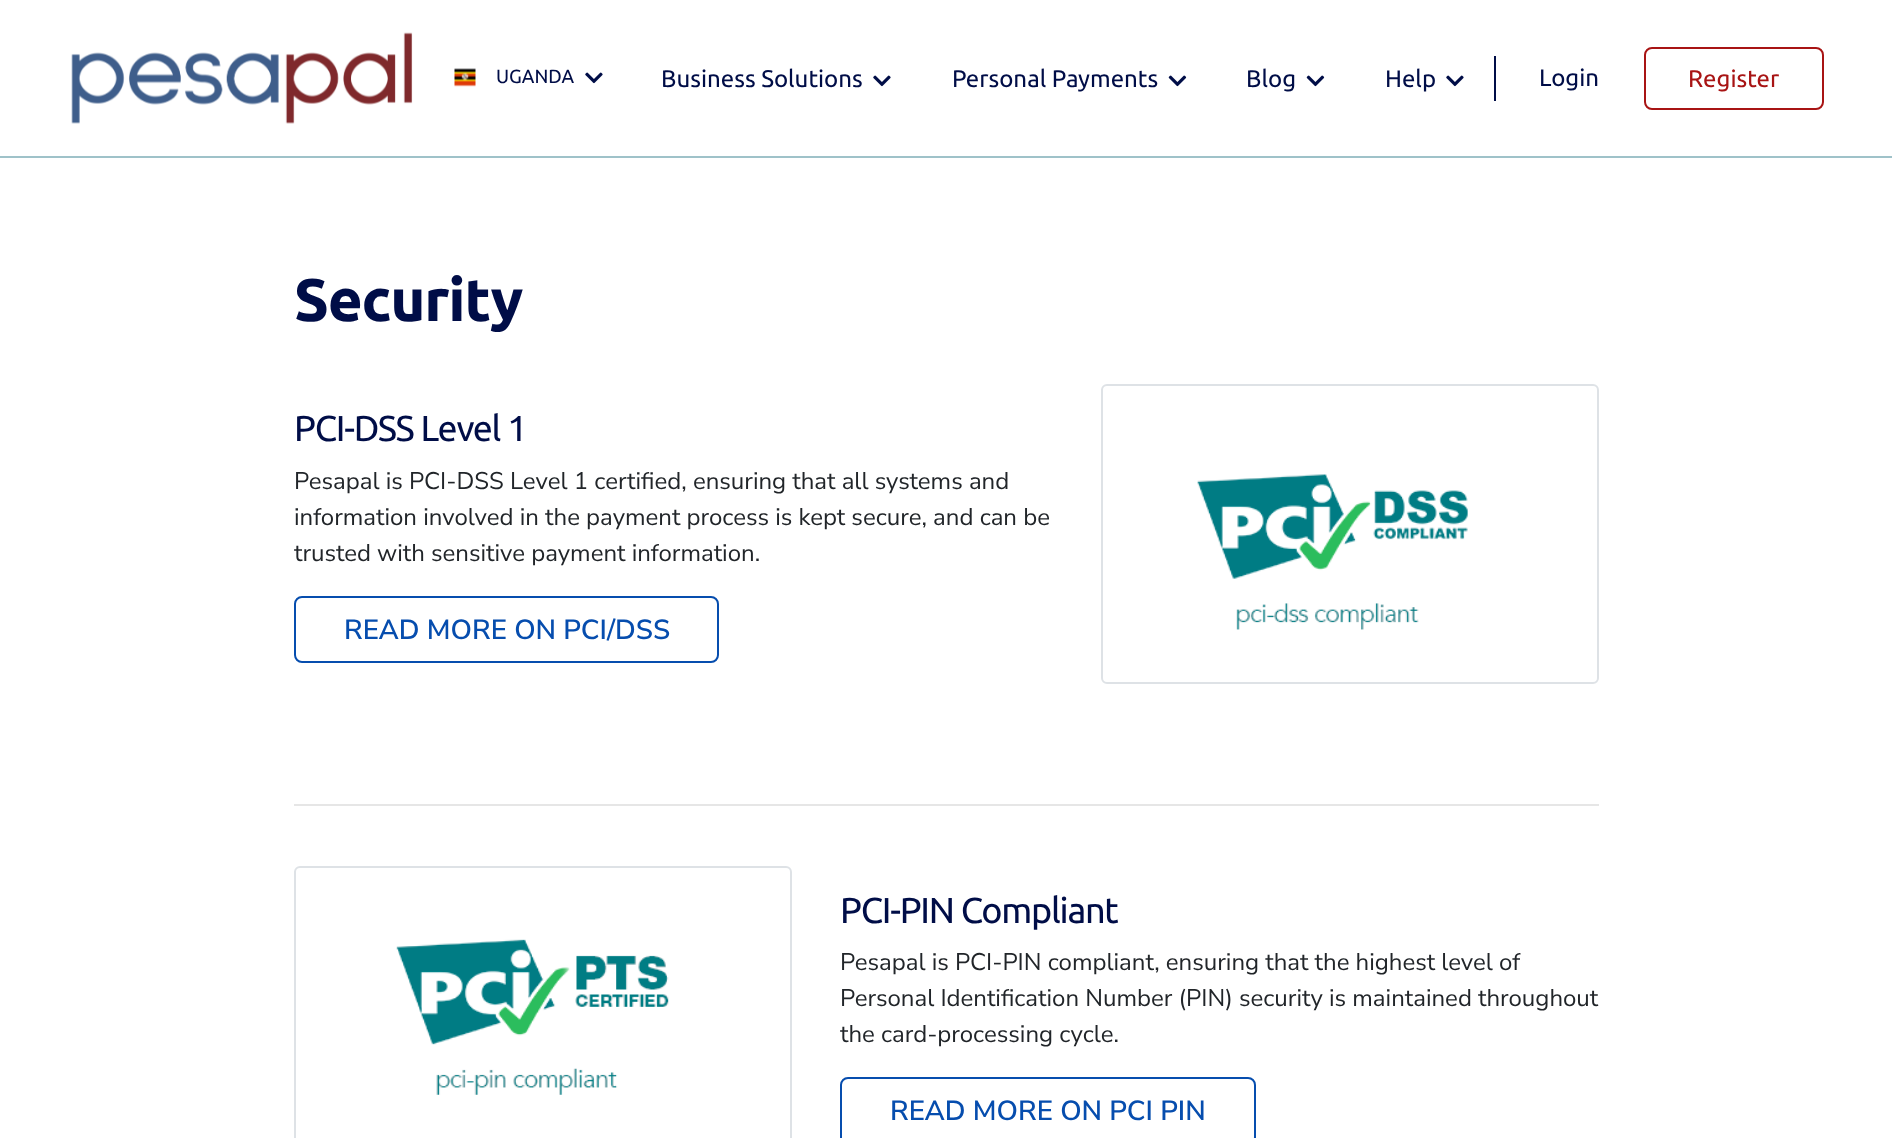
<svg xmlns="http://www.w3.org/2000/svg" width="1892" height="1138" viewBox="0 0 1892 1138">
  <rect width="100%" height="100%" fill="#fff"/>
  <path d="M0 156h1892v2H0z" fill="#9fc2c9"/>
  <image x="71" y="32" width="342" height="92" href="img/1.png"/>
  <image x="454" y="68" width="22" height="19" href="img/2.png"/>
  <image x="585" y="72" width="18" height="12" href="img/3.png"/>
  <image x="873" y="75" width="18" height="12" href="img/3.png"/>
  <image x="1168" y="75" width="19" height="12" href="img/4.png"/>
  <image x="1306" y="75" width="19" height="12" href="img/4.png"/>
  <image x="1446" y="75" width="18" height="12" href="img/3.png"/>
  <path d="M1494 56h2v45H1494z" fill="#000d47"/>
  <rect x="1645" y="48" width="178" height="61" rx="7" fill="none" stroke="#a81414" stroke-width="2"/>
  <rect x="1102" y="385" width="496" height="298" rx="5" fill="none" stroke="#dee2e6" stroke-width="2"/>
  <image x="1197" y="474" width="271" height="156" href="img/5.png"/>
  <rect x="295" y="597" width="423" height="65" rx="7" fill="none" stroke="#064dae" stroke-width="2"/>
  <path d="M294 804h1305v2H294z" fill="#e6e6e6"/>
  <rect x="295" y="867" width="496" height="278" rx="5" fill="none" stroke="#dee2e6" stroke-width="2"/>
  <image x="396" y="939" width="273" height="156" href="img/6.png"/>
  <rect x="841" y="1078" width="414" height="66" rx="7" fill="none" stroke="#064dae" stroke-width="2"/>
  <text x="496" y="83" font-family="Ubuntu" font-size="19" fill="#000d47">UGANDA</text>
  <g font-family="Ubuntu" font-size="24" fill="#000d47">
    <text x="661" y="87">Business Solutions</text>
    <text x="952" y="87">Personal Payments</text>
    <text x="1246" y="87">Blog</text>
    <text x="1385" y="87">Help</text>
    <text x="1539" y="86">Login</text>
  </g>
  <text x="1688" y="87" font-family="Ubuntu" font-size="24" fill="#a81414">Register</text>
  <text x="294" y="321" font-family="Ubuntu" font-size="60" font-weight="bold" letter-spacing="-1.25" fill="#000d47">Security</text>
  <text x="294" y="441" font-family="Ubuntu" font-size="36" letter-spacing="-1.25" fill="#000d47">PCI-DSS Level 1</text>
  <g font-family="Nunito Sans" font-size="24" fill="#212529">
    <text x="294" y="489">Pesapal is PCI-DSS Level 1 certified, ensuring that all systems and</text>
    <text x="294" y="525">information involved in the payment process is kept secure, and can be</text>
    <text x="294" y="561">trusted with sensitive payment information.</text>
  </g>
  <text x="344" y="639" font-family="Nunito Sans" font-size="27.6" font-weight="600" fill="#064dae">READ MORE ON PCI/DSS</text>
  <text x="840" y="923" font-family="Ubuntu" font-size="36" letter-spacing="-1.25" fill="#000d47">PCI-PIN Compliant</text>
  <g font-family="Nunito Sans" font-size="24" fill="#212529">
    <text x="840" y="970">Pesapal is PCI-PIN compliant, ensuring that the highest level of</text>
    <text x="840" y="1006">Personal Identification Number (PIN) security is maintained throughout</text>
    <text x="840" y="1042">the card-processing cycle.</text>
  </g>
  <text x="890" y="1120" font-family="Nunito Sans" font-size="27.6" font-weight="600" fill="#064dae">READ MORE ON PCI PIN</text>
</svg>
